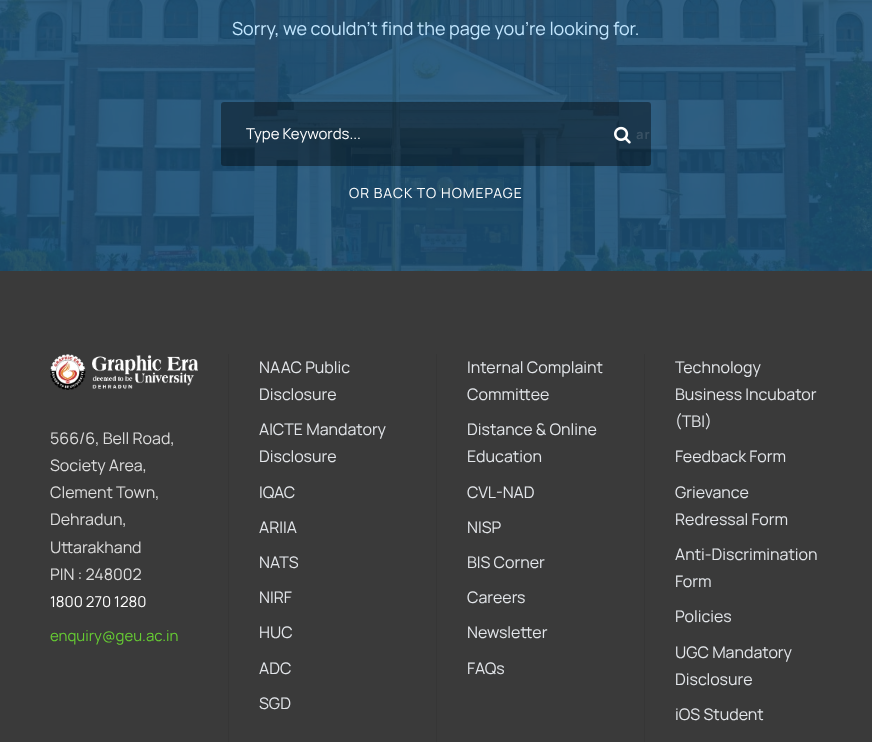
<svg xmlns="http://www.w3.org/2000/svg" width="872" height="742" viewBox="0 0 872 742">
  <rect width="100%" height="100%" fill="#3a3a3a"/>
  <path d="M0 0h872v271H0z" fill="#23618e"/>
  <image x="0" y="0" width="872" height="271" href="img/1.png"/>
  <rect x="221" y="102" width="430" height="64" rx="3" fill="#00000066"/>
  <image x="614" y="126" width="17" height="18" href="img/2.png"/>
  <image x="50" y="354" width="148" height="36" href="img/3.png"/>
  <path d="M228 354h1v388H228z" fill="#363636"/>
  <path d="M436 354h1v388H436z" fill="#363636"/>
  <path d="M644 354h1v388H644z" fill="#363636"/>
  <text x="232" y="35" font-family="Manrope" font-size="18" fill="#c3e7ff">Sorry, we couldn't find the page you're looking for.</text>
  <text x="246" y="139" font-family="Manrope" font-size="15" fill="#fff">Type Keywords...</text>
  <text x="636" y="139" font-family="Manrope" font-size="13" font-weight="bold" letter-spacing="1" fill="#395164">ar</text>
  <text x="349" y="198" font-family="Manrope" font-size="14" letter-spacing="1" fill="#fff">OR BACK TO HOMEPAGE</text>
  <g font-family="Manrope" font-size="16" fill="#ddd">
    <text x="50" y="444">566/6, Bell Road,</text>
    <text x="50" y="471">Society Area,</text>
    <text x="50" y="498">Clement Town,</text>
    <text x="50" y="525">Dehradun,</text>
    <text x="50" y="553">Uttarakhand</text>
    <text x="50" y="580">PIN : 248002</text>
  </g>
  <text x="50" y="607" font-family="Manrope" font-size="15" fill="#fff">1800 270 1280</text>
  <text x="50" y="641" font-family="Manrope" font-size="15" fill="#6c3">enquiry@geu.ac.in</text>
  <g font-family="Manrope" font-size="16" fill="#e3e6ea">
    <text x="259" y="373">NAAC Public</text>
    <text x="259" y="400">Disclosure</text>
    <text x="259" y="435">AICTE Mandatory</text>
    <text x="259" y="462">Disclosure</text>
    <text x="259" y="498">IQAC</text>
    <text x="259" y="533">ARIIA</text>
    <text x="259" y="568">NATS</text>
    <text x="259" y="603">NIRF</text>
    <text x="259" y="638">HUC</text>
    <text x="259" y="674">ADC</text>
    <text x="259" y="709">SGD</text>
    <text x="467" y="373">Internal Complaint</text>
    <text x="467" y="400">Committee</text>
    <text x="467" y="435">Distance &amp; Online</text>
    <text x="467" y="462">Education</text>
    <text x="467" y="498">CVL-NAD</text>
    <text x="467" y="533">NISP</text>
    <text x="467" y="568">BIS Corner</text>
    <text x="467" y="603">Careers</text>
    <text x="467" y="638">Newsletter</text>
    <text x="467" y="674">FAQs</text>
    <text x="675" y="373">Technology</text>
    <text x="675" y="400">Business Incubator</text>
    <text x="675" y="427">(TBI)</text>
    <text x="675" y="462">Feedback Form</text>
    <text x="675" y="498">Grievance</text>
    <text x="675" y="525">Redressal Form</text>
    <text x="675" y="560">Anti-Discrimination</text>
    <text x="675" y="587">Form</text>
    <text x="675" y="622">Policies</text>
    <text x="675" y="658">UGC Mandatory</text>
    <text x="675" y="685">Disclosure</text>
    <text x="675" y="720">iOS Student</text>
  </g>
</svg>
